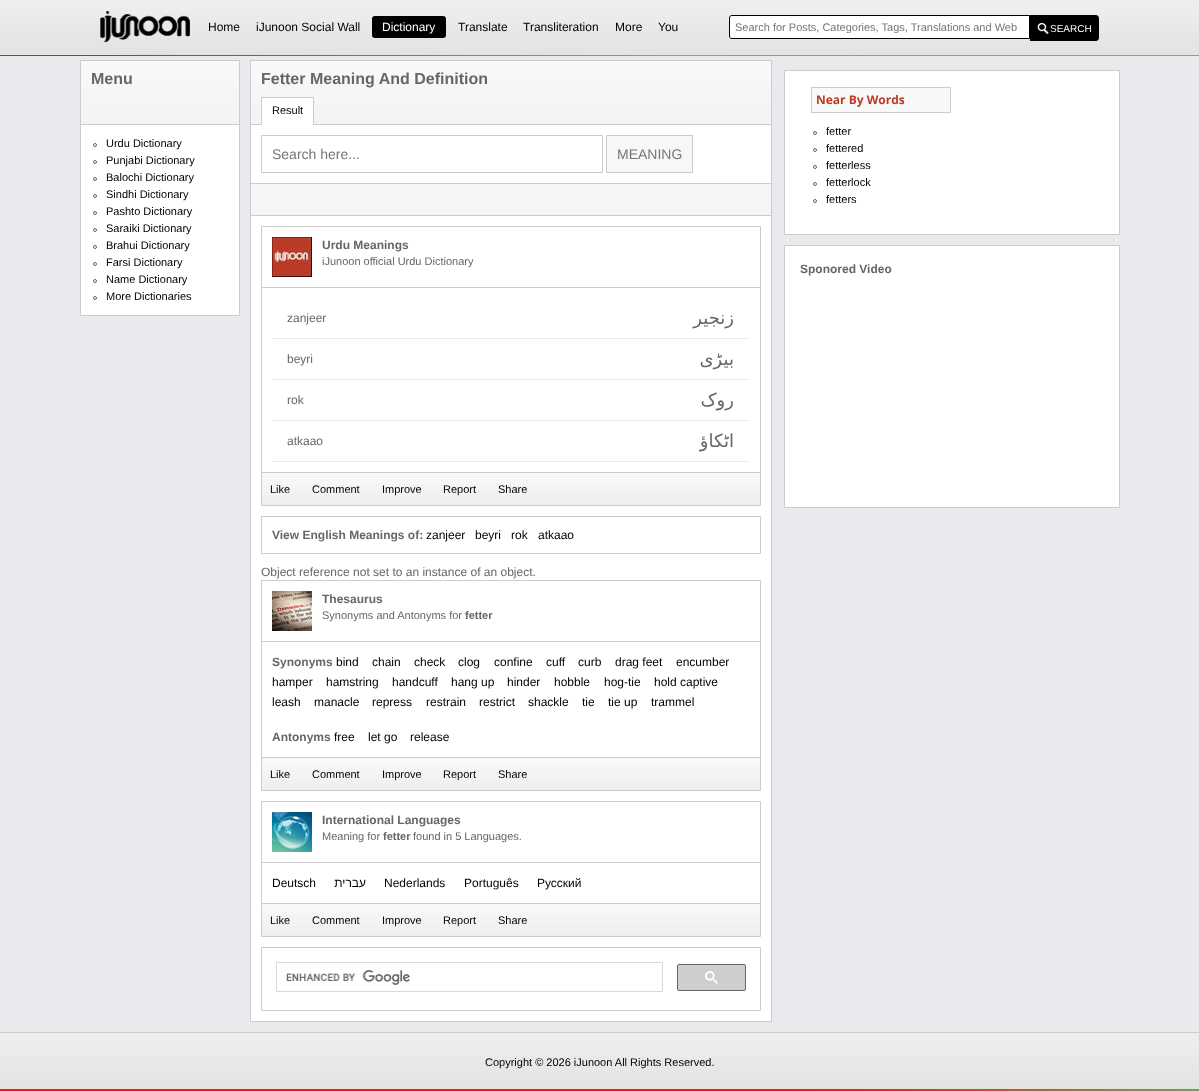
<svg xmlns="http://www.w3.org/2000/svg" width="1199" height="1091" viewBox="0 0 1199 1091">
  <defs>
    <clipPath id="clip1"><path d="M735 21h289v12H735z"/></clipPath>
  </defs>
  <rect width="100%" height="100%" fill="#e9eaed"/>
  <image x="0" y="55" width="1199" height="1" href="img/1.png"/>
  <image x="0" y="0" width="1199" height="55" href="img/2.png"/>
  <image x="100" y="11" width="90" height="31" href="img/3.png"/>
  <rect x="372" y="16" width="74" height="22" rx="3" fill="#000"/>
  <path d="M732 15.5H1029.5V38.5H732C730.5 38.5 729.5 37.5 729.5 36V18C729.5 16.5 730.5 15.5 732 15.5Z" fill="#fff" stroke="#000"/>
  <path d="M1030 15H1096C1097.5 15 1099 16.5 1099 18V38C1099 39.5 1097.5 41 1096 41H1030Z" fill="#000"/>
  <image x="1037" y="23" width="12" height="11" href="img/4.png"/>
  <path d="M81 125h158v190H81z" fill="#fff"/>
  <path d="M80.5 60.5h159v255H80.5z" fill="none" stroke="#ccc"/>
  <image x="81" y="61" width="158" height="63" href="img/5.png"/>
  <path d="M81 124h158v1H81z" fill="#ccc"/>
  <circle cx="95" cy="145" r="1.5" fill="none" stroke="#666"/>
  <circle cx="95" cy="162" r="1.5" fill="none" stroke="#666"/>
  <circle cx="95" cy="179" r="1.5" fill="none" stroke="#666"/>
  <circle cx="95" cy="196" r="1.5" fill="none" stroke="#666"/>
  <circle cx="95" cy="213" r="1.5" fill="none" stroke="#666"/>
  <circle cx="95" cy="230" r="1.5" fill="none" stroke="#666"/>
  <circle cx="95" cy="247" r="1.5" fill="none" stroke="#666"/>
  <circle cx="95" cy="264" r="1.5" fill="none" stroke="#666"/>
  <circle cx="95" cy="281" r="1.5" fill="none" stroke="#666"/>
  <circle cx="95" cy="298" r="1.5" fill="none" stroke="#666"/>
  <path d="M251 125h520v896H251z" fill="#fff"/>
  <path d="M250.5 60.5h521v961H250.5z" fill="none" stroke="#ccc"/>
  <image x="251" y="61" width="520" height="63" href="img/6.png"/>
  <path d="M251 124h520v1H251z" fill="#ccc"/>
  <path d="M261 97h1v27H261z" fill="#ccc"/>
  <path d="M262 97h52v1H262z" fill="#ccc"/>
  <path d="M313 97h1v28H313z" fill="#ccc"/>
  <path d="M262 98h51v27H262z" fill="#fff"/>
  <path d="M251 183h520v1H251z" fill="#ccc"/>
  <path d="M261.5 135.5h341v37H261.5z" fill="none" stroke="#ccc"/>
  <path d="M606.5 135.5h86v37H606.5z" fill="#f7f7f7" stroke="#ccc"/>
  <path d="M251 184h520v31H251z" fill="#f6f6f6"/>
  <path d="M251 215h520v1H251z" fill="#ccc"/>
  <path d="M261.5 226.5h499v279H261.5z" fill="none" stroke="#ccc"/>
  <path d="M262 287h498v1H262z" fill="#ccc"/>
  <image x="272" y="237" width="40" height="40" href="img/7.png"/>
  <path d="M272 338h478v1H272z" fill="#ebebeb"/>
  <path d="M272 379h478v1H272z" fill="#ebebeb"/>
  <path d="M272 420h478v1H272z" fill="#ebebeb"/>
  <path d="M272 461h478v1H272z" fill="#ebebeb"/>
  <image x="262" y="473" width="498" height="32" href="img/8.png"/>
  <path d="M262 472h498v1H262z" fill="#ccc"/>
  <path d="M261.5 516.5h499v37H261.5z" fill="none" stroke="#ccc"/>
  <path d="M261.5 580.5h499v210H261.5z" fill="none" stroke="#ccc"/>
  <path d="M262 641h498v1H262z" fill="#ccc"/>
  <image x="272" y="591" width="40" height="40" href="img/9.png"/>
  <image x="262" y="758" width="498" height="32" href="img/8.png"/>
  <path d="M262 757h498v1H262z" fill="#ccc"/>
  <path d="M261.5 801.5h499v135H261.5z" fill="none" stroke="#ccc"/>
  <path d="M262 862h498v1H262z" fill="#ccc"/>
  <image x="272" y="812" width="40" height="40" href="img/10.png"/>
  <image x="262" y="904" width="498" height="32" href="img/8.png"/>
  <path d="M262 903h498v1H262z" fill="#ccc"/>
  <path d="M261.5 947.5h499v63H261.5z" fill="none" stroke="#ccc"/>
  <path d="M276.5 962.5h386v29H276.5z" fill="none" stroke="#d9d9d9"/>
  <image x="286" y="970" width="124" height="15" href="img/11.png"/>
  <rect x="677.5" y="964.5" width="68" height="26" rx="1.5" fill="#cecece" stroke="#666"/>
  <image x="705" y="971" width="13" height="13" href="img/12.png"/>
  <path d="M784.5 70.5h335v164H784.5z" fill="#fff" stroke="#ccc"/>
  <path d="M811.5 87.5h139v25H811.5z" fill="#f8f8f8" stroke="#ccc"/>
  <circle cx="815" cy="133" r="1.5" fill="none" stroke="#666"/>
  <circle cx="815" cy="150" r="1.5" fill="none" stroke="#666"/>
  <circle cx="815" cy="167" r="1.5" fill="none" stroke="#666"/>
  <circle cx="815" cy="184" r="1.5" fill="none" stroke="#666"/>
  <circle cx="815" cy="201" r="1.5" fill="none" stroke="#666"/>
  <path d="M784.5 245.5h335v262H784.5z" fill="#fff" stroke="#ccc"/>
  <image x="0" y="1089" width="1199" height="2" href="img/13.png"/>
  <image x="0" y="1033" width="1199" height="56" href="img/14.png"/>
  <path d="M0 1032h1199v1H0z" fill="#ccc"/>
  <g font-family="Liberation Sans" font-size="12" fill="#000">
    <text x="208" y="31">Home</text>
    <text x="256" y="31">iJunoon Social Wall</text>
  </g>
  <text x="382" y="31" font-family="Liberation Sans" font-size="12" fill="#fff">Dictionary</text>
  <g font-family="Liberation Sans" font-size="12" fill="#000">
    <text x="458" y="31">Translate</text>
    <text x="523" y="31">Transliteration</text>
    <text x="615" y="31">More</text>
    <text x="658" y="31">You</text>
  </g>
  <g clip-path="url(#clip1)">
    <text x="735" y="31" font-family="Liberation Sans" font-size="11" fill="#757575">Search for Posts, Categories, Tags, Translations and Web</text>
  </g>
  <text x="1050" y="32" font-family="Liberation Sans" font-size="10" fill="#fff">SEARCH</text>
  <text x="91" y="84" font-family="Liberation Sans" font-size="16" font-weight="bold" fill="#666">Menu</text>
  <g font-family="Liberation Sans" font-size="11" fill="#000">
    <text x="106" y="147">Urdu Dictionary</text>
    <text x="106" y="164">Punjabi Dictionary</text>
    <text x="106" y="181">Balochi Dictionary</text>
    <text x="106" y="198">Sindhi Dictionary</text>
    <text x="106" y="215">Pashto Dictionary</text>
    <text x="106" y="232">Saraiki Dictionary</text>
    <text x="106" y="249">Brahui Dictionary</text>
    <text x="106" y="266">Farsi Dictionary</text>
    <text x="106" y="283">Name Dictionary</text>
    <text x="106" y="300">More Dictionaries</text>
  </g>
  <text x="261" y="84" font-family="Liberation Sans" font-size="16" font-weight="bold" fill="#666">Fetter Meaning And Definition</text>
  <text x="272" y="114" font-family="Liberation Sans" font-size="11" fill="#000">Result</text>
  <g font-family="Liberation Sans" font-size="14" fill="#757575">
    <text x="272" y="159">Search here...</text>
    <text x="617" y="159">MEANING</text>
  </g>
  <text x="322" y="249" font-family="Liberation Sans" font-size="12" font-weight="bold" fill="#666">Urdu Meanings</text>
  <text x="322" y="265" font-family="Liberation Sans" font-size="11" fill="#666">iJunoon official Urdu Dictionary</text>
  <text x="287" y="322" font-family="Liberation Sans" font-size="12" fill="#666">zanjeer</text>
  <text x="734" y="324" font-family="DejaVu Sans" font-size="18" direction="rtl" fill="#666">زنجیر</text>
  <text x="287" y="363" font-family="Liberation Sans" font-size="12" fill="#666">beyri</text>
  <text x="734" y="365" font-family="DejaVu Sans" font-size="18" direction="rtl" fill="#666">بیڑی</text>
  <text x="287" y="404" font-family="Liberation Sans" font-size="12" fill="#666">rok</text>
  <text x="734" y="406" font-family="DejaVu Sans" font-size="18" direction="rtl" fill="#666">روک</text>
  <text x="287" y="445" font-family="Liberation Sans" font-size="12" fill="#666">atkaao</text>
  <text x="734" y="447" font-family="DejaVu Sans" font-size="18" direction="rtl" fill="#666">اٹکاؤ</text>
  <g font-family="Liberation Sans" font-size="11" fill="#000">
    <text x="270" y="493">Like</text>
    <text x="312" y="493">Comment</text>
    <text x="382" y="493">Improve</text>
    <text x="443" y="493">Report</text>
    <text x="498" y="493">Share</text>
  </g>
  <text x="272" y="539" font-family="Liberation Sans" font-size="12" font-weight="bold" fill="#666">View English Meanings of:</text>
  <g font-family="Liberation Sans" font-size="12" fill="#000">
    <text x="426" y="539">zanjeer</text>
    <text x="475" y="539">beyri</text>
    <text x="511" y="539">rok</text>
    <text x="538" y="539">atkaao</text>
  </g>
  <text x="261" y="576" font-family="Liberation Sans" font-size="12" fill="#666">Object reference not set to an instance of an object.</text>
  <text x="322" y="603" font-family="Liberation Sans" font-size="12" font-weight="bold" fill="#666">Thesaurus</text>
  <text x="322" y="619" font-family="Liberation Sans" font-size="11" fill="#666">Synonyms and Antonyms for</text>
  <text x="465" y="619" font-family="Liberation Sans" font-size="11" font-weight="bold" fill="#666">fetter</text>
  <text x="272" y="666" font-family="Liberation Sans" font-size="12" font-weight="bold" fill="#666">Synonyms</text>
  <g font-family="Liberation Sans" font-size="12" fill="#000">
    <text x="336" y="666">bind</text>
    <text x="372" y="666">chain</text>
    <text x="414" y="666">check</text>
    <text x="458" y="666">clog</text>
    <text x="494" y="666">confine</text>
    <text x="546" y="666">cuff</text>
    <text x="578" y="666">curb</text>
    <text x="615" y="666">drag feet</text>
    <text x="676" y="666">encumber</text>
    <text x="272" y="686">hamper</text>
    <text x="326" y="686">hamstring</text>
    <text x="392" y="686">handcuff</text>
    <text x="451" y="686">hang up</text>
    <text x="507" y="686">hinder</text>
    <text x="554" y="686">hobble</text>
    <text x="604" y="686">hog-tie</text>
    <text x="654" y="686">hold captive</text>
    <text x="272" y="706">leash</text>
    <text x="314" y="706">manacle</text>
    <text x="372" y="706">repress</text>
    <text x="426" y="706">restrain</text>
    <text x="479" y="706">restrict</text>
    <text x="528" y="706">shackle</text>
    <text x="582" y="706">tie</text>
    <text x="608" y="706">tie up</text>
    <text x="651" y="706">trammel</text>
  </g>
  <text x="272" y="741" font-family="Liberation Sans" font-size="12" font-weight="bold" fill="#666">Antonyms</text>
  <g font-family="Liberation Sans" font-size="12" fill="#000">
    <text x="334" y="741">free</text>
    <text x="368" y="741">let go</text>
    <text x="410" y="741">release</text>
  </g>
  <g font-family="Liberation Sans" font-size="11" fill="#000">
    <text x="270" y="778">Like</text>
    <text x="312" y="778">Comment</text>
    <text x="382" y="778">Improve</text>
    <text x="443" y="778">Report</text>
    <text x="498" y="778">Share</text>
  </g>
  <text x="322" y="824" font-family="Liberation Sans" font-size="12" font-weight="bold" fill="#666">International Languages</text>
  <text x="322" y="840" font-family="Liberation Sans" font-size="11" fill="#666">Meaning for</text>
  <text x="383" y="840" font-family="Liberation Sans" font-size="11" font-weight="bold" fill="#666">fetter</text>
  <text x="413" y="840" font-family="Liberation Sans" font-size="11" fill="#666">found in 5 Languages.</text>
  <text x="272" y="887" font-family="Liberation Sans" font-size="12" fill="#000">Deutsch</text>
  <text x="366" y="887" font-family="Liberation Sans" font-size="12" direction="rtl" fill="#000">עברית</text>
  <g font-family="Liberation Sans" font-size="12" fill="#000">
    <text x="384" y="887">Nederlands</text>
    <text x="464" y="887">Português</text>
    <text x="537" y="887">Русский</text>
  </g>
  <g font-family="Liberation Sans" font-size="11" fill="#000">
    <text x="270" y="924">Like</text>
    <text x="312" y="924">Comment</text>
    <text x="382" y="924">Improve</text>
    <text x="443" y="924">Report</text>
    <text x="498" y="924">Share</text>
  </g>
  <text x="816" y="104" font-family="Open Sans" font-size="12" font-weight="bold" fill="#ba3b26">Near By Words</text>
  <g font-family="Liberation Sans" font-size="11" fill="#000">
    <text x="826" y="135">fetter</text>
    <text x="826" y="152">fettered</text>
    <text x="826" y="169">fetterless</text>
    <text x="826" y="186">fetterlock</text>
    <text x="826" y="203">fetters</text>
  </g>
  <text x="800" y="273" font-family="Liberation Sans" font-size="12" font-weight="bold" fill="#666">Sponored Video</text>
  <text x="485" y="1066" font-family="Liberation Sans" font-size="11" fill="#000">Copyright © 2026 iJunoon All Rights Reserved.</text>
</svg>
